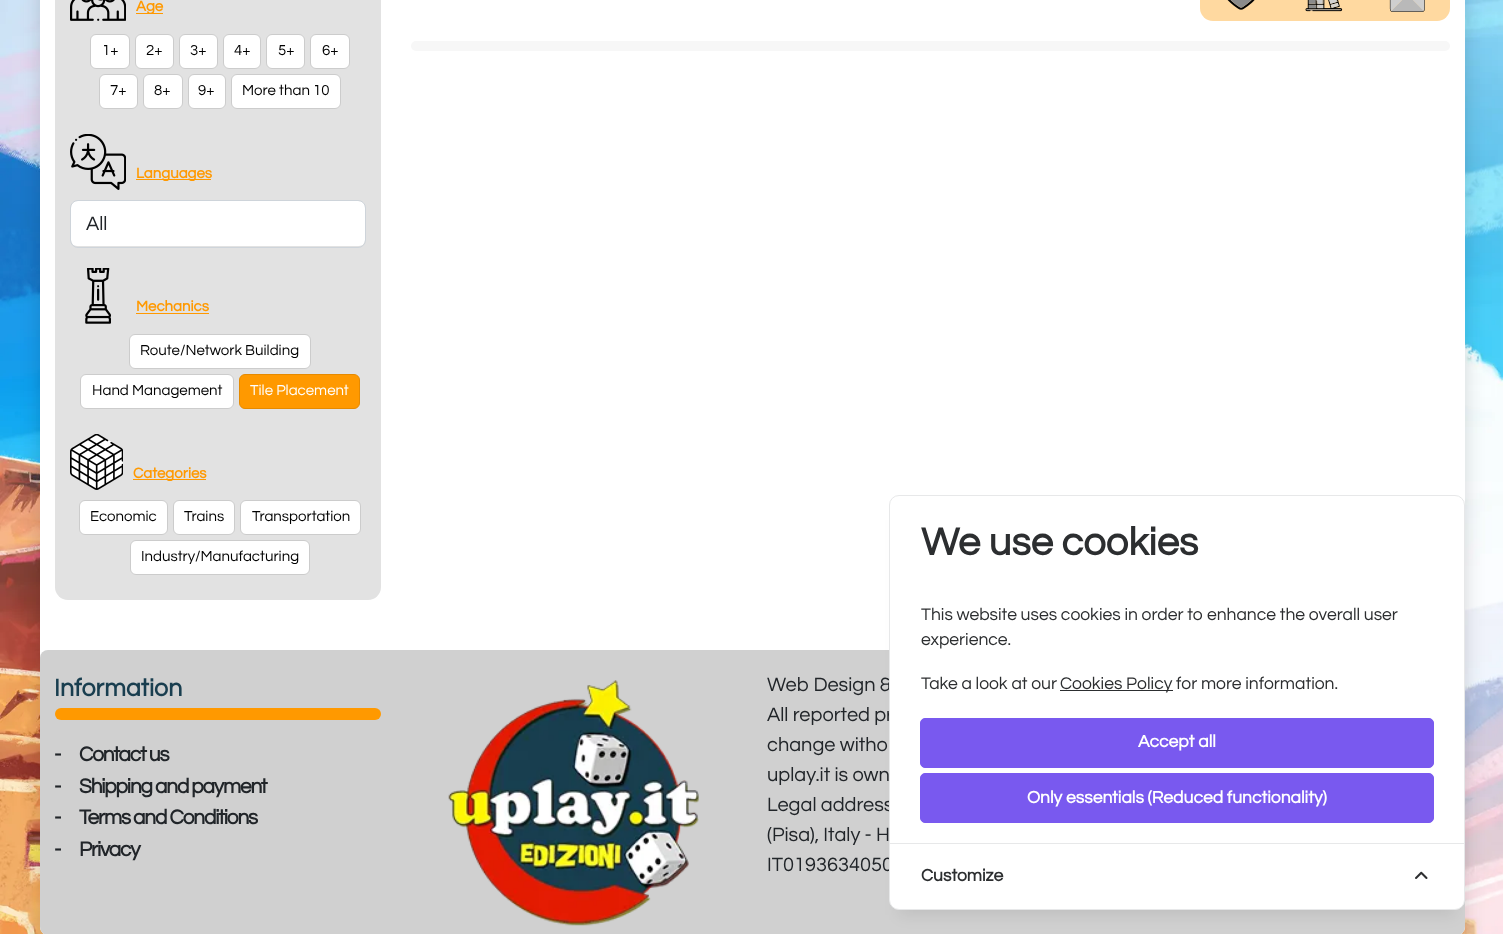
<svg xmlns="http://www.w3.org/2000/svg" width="1503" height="934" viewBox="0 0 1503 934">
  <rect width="100%" height="100%" fill="#fff"/>
  <image x="0" y="0" width="1503" height="934" href="img/1.png"/>
  <rect x="40" y="-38" width="1425" height="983" rx="8" fill="#00000026" filter="blur(10px)"/>
  <rect x="40" y="-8" width="1425" height="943" rx="8" fill="#fff"/>
  <rect x="55" y="-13" width="326" height="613" rx="13" fill="#e2e2e2"/>
  <image x="70" y="0" width="56" height="21" href="img/2.png"/>
  <path d="M136 13h27v1H136z" fill="#f90"/>
  <rect x="90.5" y="34.5" width="39" height="34" rx="5.5" fill="#fff" stroke="#ccc"/>
  <rect x="135.5" y="34.5" width="38" height="34" rx="5.5" fill="#fff" stroke="#ccc"/>
  <rect x="179.5" y="34.5" width="38" height="34" rx="5.5" fill="#fff" stroke="#ccc"/>
  <rect x="223.5" y="34.5" width="37" height="34" rx="5.5" fill="#fff" stroke="#ccc"/>
  <rect x="266.5" y="34.5" width="38" height="34" rx="5.5" fill="#fff" stroke="#ccc"/>
  <rect x="310.5" y="34.5" width="39" height="34" rx="5.5" fill="#fff" stroke="#ccc"/>
  <rect x="99.5" y="74.5" width="38" height="34" rx="5.5" fill="#fff" stroke="#ccc"/>
  <rect x="143.5" y="74.5" width="39" height="34" rx="5.5" fill="#fff" stroke="#ccc"/>
  <rect x="188.5" y="74.5" width="37" height="34" rx="5.5" fill="#fff" stroke="#ccc"/>
  <rect x="231.5" y="74.5" width="109" height="34" rx="5.5" fill="#fff" stroke="#ccc"/>
  <image x="70" y="134" width="56" height="56" href="img/3.png"/>
  <path d="M136 179h75v1H136z" fill="#f90"/>
  <rect x="71" y="201" width="294" height="45" rx="6" fill="#fff"/>
  <rect x="70.5" y="200.5" width="295" height="47" rx="7.5" fill="none" stroke="#ced4da"/>
  <image x="85" y="268" width="26" height="56" href="img/4.png"/>
  <path d="M136 313h73v1H136z" fill="#f90"/>
  <rect x="129.5" y="334.5" width="181" height="34" rx="5.5" fill="#fff" stroke="#ccc"/>
  <rect x="80.5" y="374.5" width="153" height="34" rx="5.5" fill="#fff" stroke="#ccc"/>
  <rect x="239.5" y="374.5" width="120" height="34" rx="5.5" fill="#f90" stroke="#e68a00"/>
  <image x="70" y="434" width="53" height="56" href="img/5.png"/>
  <path d="M133 479h73v1H133z" fill="#f90"/>
  <rect x="79.5" y="500.5" width="88" height="34" rx="5.5" fill="#fff" stroke="#ccc"/>
  <rect x="173.5" y="500.5" width="61" height="34" rx="5.5" fill="#fff" stroke="#ccc"/>
  <rect x="240.5" y="500.5" width="120" height="34" rx="5.5" fill="#fff" stroke="#ccc"/>
  <rect x="130.5" y="540.5" width="179" height="34" rx="5.5" fill="#fff" stroke="#ccc"/>
  <rect x="1200" y="-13" width="250" height="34" rx="13" fill="#ffd9a0"/>
  <image x="1227" y="0" width="28" height="10" href="img/6.png"/>
  <image x="1305" y="0" width="38" height="12" href="img/7.png"/>
  <image x="1389" y="0" width="36" height="12" href="img/8.png"/>
  <rect x="411" y="41" width="1039" height="10" rx="5" fill="#f7f7f7"/>
  <rect x="40" y="650" width="1425" height="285" rx="8" fill="#d0d0d0"/>
  <rect x="55" y="708" width="326" height="12" rx="6" fill="#f90"/>
  <image x="448" y="680" width="251" height="246" href="img/9.png"/>
  <path d="M899 520h556v395H899z" fill="#00000014" filter="blur(7.5px)"/>
  <text x="136" y="11" font-family="Questrial" font-size="15" font-weight="bold" fill="#f90">Age</text>
  <g font-family="Questrial" font-size="15" fill="#000">
    <text x="102" y="55">1+</text>
    <text x="146" y="55">2+</text>
    <text x="190" y="55">3+</text>
    <text x="234" y="55">4+</text>
    <text x="278" y="55">5+</text>
    <text x="322" y="55">6+</text>
    <text x="110" y="95">7+</text>
    <text x="154" y="95">8+</text>
    <text x="198" y="95">9+</text>
    <text x="242" y="95">More than 10</text>
  </g>
  <text x="136" y="178" font-family="Questrial" font-size="15" font-weight="bold" fill="#f90">Languages</text>
  <text x="86" y="230" font-family="Questrial" font-size="20" fill="#212529">All</text>
  <text x="136" y="311" font-family="Questrial" font-size="15" font-weight="bold" fill="#f90">Mechanics</text>
  <g font-family="Questrial" font-size="15" fill="#000">
    <text x="140" y="355">Route/Network Building</text>
    <text x="92" y="395">Hand Management</text>
  </g>
  <text x="250" y="395" font-family="Questrial" font-size="15" fill="#fff">Tile Placement</text>
  <text x="133" y="478" font-family="Questrial" font-size="15" font-weight="bold" fill="#f90">Categories</text>
  <g font-family="Questrial" font-size="15" fill="#000">
    <text x="90" y="521">Economic</text>
    <text x="184" y="521">Trains</text>
    <text x="252" y="521">Transportation</text>
    <text x="141" y="561">Industry/Manufacturing</text>
  </g>
  <text x="54" y="696" font-family="Questrial" font-size="25" font-weight="bold" fill="#193e4f">Information</text>
  <g font-family="Questrial" font-size="21" font-weight="bold" letter-spacing="-1.25" fill="#212529">
    <text x="54" y="761">-</text>
    <text x="79" y="761">Contact us</text>
    <text x="54" y="793">-</text>
    <text x="79" y="793">Shipping and payment</text>
    <text x="54" y="824">-</text>
    <text x="79" y="824">Terms and Conditions</text>
    <text x="54" y="856">-</text>
    <text x="79" y="856">Privacy</text>
  </g>
  <g font-family="Questrial" font-size="20" fill="#212529">
    <text x="767" y="691">Web Design &amp;</text>
    <text x="767" y="721">All reported pr</text>
    <text x="767" y="751">change witho</text>
    <text x="767" y="781">uplay.it is own</text>
    <text x="767" y="811">Legal address</text>
    <text x="767" y="841">(Pisa), Italy - H</text>
    <text x="767" y="871">IT0193634050</text>
  </g>
  <rect x="889.5" y="495.5" width="575" height="414" rx="9.5" fill="#fff" stroke="#e7e8e9"/>
  <text x="921" y="555" font-family="Questrial" font-size="40" font-weight="bold" fill="#2c2e30">We use cookies</text>
  <g font-family="Questrial" font-size="17.5" fill="#2c2e30">
    <text x="921" y="620">This website uses cookies in order to enhance the overall user</text>
    <text x="921" y="645">experience.</text>
    <text x="921" y="689">Take a look at our</text>
  </g>
  <path d="M1060 690h113v1H1060z" fill="#2c2e30"/>
  <text x="1060" y="689" font-family="Questrial" font-size="17.5" fill="#2c2e30">Cookies Policy for more information.</text>
  <rect x="920.5" y="718.5" width="513" height="49" rx="4.5" fill="#7959ef" stroke="#7959ef"/>
  <text x="1138" y="747" font-family="Questrial" font-size="17.5" font-weight="bold" fill="#fff">Accept all</text>
  <rect x="920.5" y="773.5" width="513" height="49" rx="4.5" fill="#7959ef" stroke="#7959ef"/>
  <text x="1027" y="803" font-family="Questrial" font-size="17.5" font-weight="bold" fill="#fff">Only essentials (Reduced functionality)</text>
  <path d="M890 843h574v1H890z" fill="#e7e8e9"/>
  <text x="921" y="881" font-family="Questrial" font-size="17.5" font-weight="bold" fill="#2c2e30">Customize</text>
  <image x="1415" y="871" width="13" height="8" href="img/10.png"/>
</svg>
